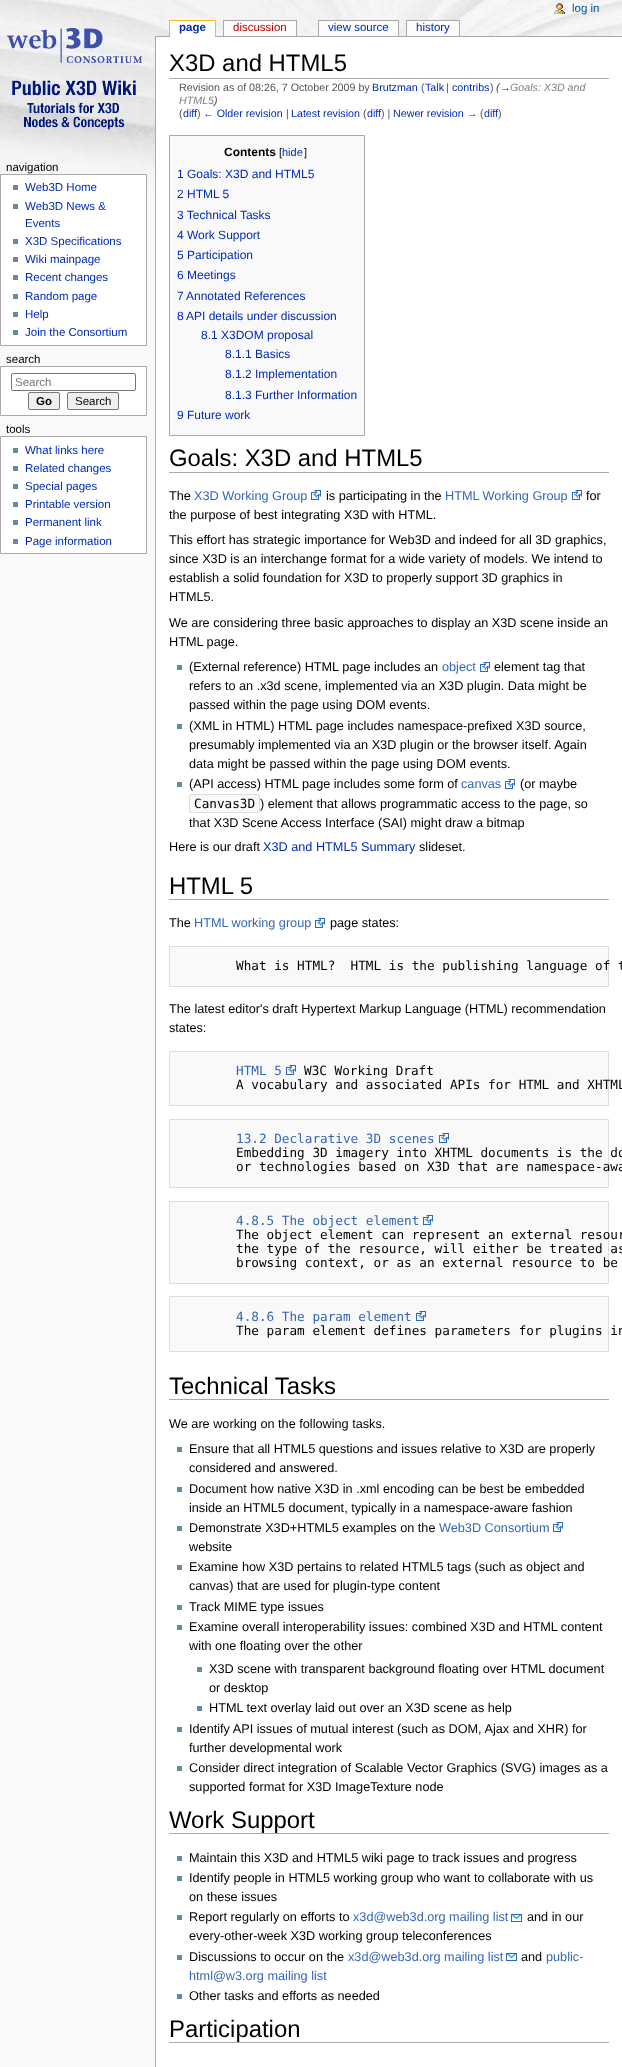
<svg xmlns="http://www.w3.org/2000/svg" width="622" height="2067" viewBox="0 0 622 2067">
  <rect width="100%" height="100%" fill="#f9f9f9"/>
  <image x="0" y="0" width="622" height="194" href="img/1.png"/>
  <image x="554" y="3" width="11" height="11" href="img/2.png"/>
  <image x="7" y="28" width="135" height="102" href="img/3.png"/>
  <path d="M169 20h47v1H169z" fill="#fabd23"/>
  <path d="M215 20h1v16H215z" fill="#fabd23"/>
  <path d="M169 20h1v16H169z" fill="#fabd23"/>
  <path d="M155 36h467v1H155z" fill="#aaa"/>
  <path d="M170 21h45v16H170z" fill="#fff"/>
  <path d="M223 20h74v1H223z" fill="#aaa"/>
  <path d="M296 20h1v16H296z" fill="#aaa"/>
  <path d="M223 20h1v16H223z" fill="#aaa"/>
  <path d="M224 21h72v15H224z" fill="#fbfbfb"/>
  <path d="M318 20h81v1H318z" fill="#aaa"/>
  <path d="M398 20h1v16H398z" fill="#aaa"/>
  <path d="M318 20h1v16H318z" fill="#aaa"/>
  <path d="M319 21h79v15H319z" fill="#fbfbfb"/>
  <path d="M406 20h54v1H406z" fill="#aaa"/>
  <path d="M459 20h1v16H459z" fill="#aaa"/>
  <path d="M406 20h1v16H406z" fill="#aaa"/>
  <path d="M407 21h52v15H407z" fill="#fbfbfb"/>
  <path d="M0.5 174.5h146v171H0.5z" fill="#fff" stroke="#aaa"/>
  <path d="M13 185h5v5H13z" fill="#638c9c"/>
  <path d="M13 204h5v5H13z" fill="#638c9c"/>
  <path d="M13 239h5v5H13z" fill="#638c9c"/>
  <path d="M13 257h5v5H13z" fill="#638c9c"/>
  <path d="M13 275h5v5H13z" fill="#638c9c"/>
  <path d="M13 294h5v5H13z" fill="#638c9c"/>
  <path d="M13 312h5v5H13z" fill="#638c9c"/>
  <path d="M13 330h5v5H13z" fill="#638c9c"/>
  <path d="M0.5 366.5h146v49H0.5z" fill="#fff" stroke="#aaa"/>
  <rect x="11.5" y="373.5" width="124" height="17" rx="1.5" fill="none" stroke="#767676"/>
  <rect x="28.5" y="392.5" width="31" height="17" rx="1.5" fill="#efefef" stroke="#767676"/>
  <rect x="67.5" y="392.5" width="51" height="17" rx="1.5" fill="#efefef" stroke="#767676"/>
  <path d="M0.5 436.5h146v117H0.5z" fill="#fff" stroke="#aaa"/>
  <path d="M13 448h5v5H13z" fill="#638c9c"/>
  <path d="M13 466h5v5H13z" fill="#638c9c"/>
  <path d="M13 484h5v5H13z" fill="#638c9c"/>
  <path d="M13 502h5v5H13z" fill="#638c9c"/>
  <path d="M13 520h5v5H13z" fill="#638c9c"/>
  <path d="M13 539h5v5H13z" fill="#638c9c"/>
  <path d="M156 37h466v2030H156z" fill="#fff"/>
  <path d="M155 36h1v2031H155z" fill="#aaa"/>
  <path d="M169 78h440v1H169z" fill="#aaa"/>
  <path d="M169.5 135.5h195v300H169.5z" fill="#f9f9f9" stroke="#aaa"/>
  <path d="M169 472h440v1H169z" fill="#aaa"/>
  <image x="311" y="490" width="10" height="10" href="img/4.png"/>
  <image x="572" y="490" width="10" height="10" href="img/4.png"/>
  <path d="M177 665h5v5H177z" fill="#638c9c"/>
  <image x="480" y="662" width="10" height="10" href="img/4.png"/>
  <path d="M177 724h5v5H177z" fill="#638c9c"/>
  <path d="M177 782h5v5H177z" fill="#638c9c"/>
  <image x="505" y="779" width="10" height="10" href="img/4.png"/>
  <rect x="189.5" y="794.5" width="70" height="18" rx="1.5" fill="#f9f9f9" stroke="#ddd"/>
  <path d="M169 899h440v1H169z" fill="#aaa"/>
  <image x="315" y="918" width="10" height="10" href="img/4.png"/>
  <path d="M169.5 946.5h439v40H169.5z" fill="#f9f9f9" stroke="#ddd"/>
  <path d="M169.5 1051.5h439v54H169.5z" fill="#f9f9f9" stroke="#ddd"/>
  <image x="286" y="1065" width="10" height="10" href="img/5.png"/>
  <path d="M169.5 1119.5h439v68H169.5z" fill="#f9f9f9" stroke="#ddd"/>
  <image x="439" y="1133" width="10" height="10" href="img/5.png"/>
  <path d="M169.5 1201.5h439v82H169.5z" fill="#f9f9f9" stroke="#ddd"/>
  <image x="423" y="1215" width="10" height="10" href="img/5.png"/>
  <path d="M169.5 1296.5h439v55H169.5z" fill="#f9f9f9" stroke="#ddd"/>
  <image x="416" y="1311" width="10" height="10" href="img/5.png"/>
  <path d="M169 1399h440v1H169z" fill="#aaa"/>
  <path d="M177 1447h5v5H177z" fill="#638c9c"/>
  <path d="M177 1487h5v5H177z" fill="#638c9c"/>
  <path d="M177 1526h5v5H177z" fill="#638c9c"/>
  <image x="553" y="1522" width="10" height="10" href="img/4.png"/>
  <path d="M177 1565h5v5H177z" fill="#638c9c"/>
  <path d="M177 1605h5v5H177z" fill="#638c9c"/>
  <path d="M177 1625h5v5H177z" fill="#638c9c"/>
  <path d="M197 1667h5v5H197z" fill="#638c9c"/>
  <path d="M197 1706h5v5H197z" fill="#638c9c"/>
  <path d="M177 1727h5v5H177z" fill="#638c9c"/>
  <path d="M177 1766h5v5H177z" fill="#638c9c"/>
  <path d="M169 1833h440v1H169z" fill="#aaa"/>
  <path d="M177 1856h5v5H177z" fill="#638c9c"/>
  <path d="M177 1876h5v5H177z" fill="#638c9c"/>
  <path d="M177 1915h5v5H177z" fill="#638c9c"/>
  <image x="511" y="1914" width="11" height="8" href="img/6.png"/>
  <path d="M177 1955h5v5H177z" fill="#638c9c"/>
  <image x="506" y="1953" width="11" height="8" href="img/6.png"/>
  <path d="M177 1994h5v5H177z" fill="#638c9c"/>
  <path d="M169 2042h440v1H169z" fill="#aaa"/>
  <text x="572" y="12" font-family="Liberation Sans" font-size="11.5" fill="#005896">log in</text>
  <text x="179" y="31" font-family="Liberation Sans" font-size="11.5" font-weight="bold" fill="#002bb8">page</text>
  <text x="233" y="31" font-family="Liberation Sans" font-size="11.5" fill="#ba0000">discussion</text>
  <g font-family="Liberation Sans" font-size="11.5" fill="#002bb8">
    <text x="328" y="31">view source</text>
    <text x="416" y="31">history</text>
  </g>
  <text x="6" y="171" font-family="Liberation Sans" font-size="11.5" fill="#000">navigation</text>
  <g font-family="Liberation Sans" font-size="11.5" fill="#002bb8">
    <text x="25" y="191">Web3D Home</text>
    <text x="25" y="210">Web3D News &amp;</text>
    <text x="25" y="227">Events</text>
    <text x="25" y="245">X3D Specifications</text>
    <text x="25" y="263">Wiki mainpage</text>
    <text x="25" y="281">Recent changes</text>
    <text x="25" y="300">Random page</text>
    <text x="25" y="318">Help</text>
    <text x="25" y="336">Join the Consortium</text>
  </g>
  <text x="6" y="363" font-family="Liberation Sans" font-size="11.5" fill="#000">search</text>
  <text x="15" y="386" font-family="Liberation Sans" font-size="11.5" fill="#757575">Search</text>
  <text x="36" y="405" font-family="Liberation Sans" font-size="11.5" font-weight="bold" fill="#000">Go</text>
  <g font-family="Liberation Sans" font-size="11.5" fill="#000">
    <text x="75" y="405">Search</text>
    <text x="6" y="433">tools</text>
  </g>
  <g font-family="Liberation Sans" font-size="11.5" fill="#002bb8">
    <text x="25" y="454">What links here</text>
    <text x="25" y="472">Related changes</text>
    <text x="25" y="490">Special pages</text>
    <text x="25" y="508">Printable version</text>
    <text x="25" y="526">Permanent link</text>
    <text x="25" y="545">Page information</text>
  </g>
  <text x="169" y="71" font-family="Liberation Sans" font-size="23.9" fill="#000">X3D and HTML5</text>
  <text x="179" y="91" font-family="Liberation Sans" font-size="10.7" fill="#545454">Revision as of 08:26, 7 October 2009 by</text>
  <text x="372" y="91" font-family="Liberation Sans" font-size="10.7" fill="#002bb8">Brutzman</text>
  <text x="421" y="91" font-family="Liberation Sans" font-size="10.7" fill="#545454">(</text>
  <text x="425" y="91" font-family="Liberation Sans" font-size="10.7" fill="#002bb8">Talk</text>
  <text x="446" y="91" font-family="Liberation Sans" font-size="10.7" fill="#545454">|</text>
  <text x="452" y="91" font-family="Liberation Sans" font-size="10.7" fill="#002bb8">contribs</text>
  <text x="490" y="91" font-family="Liberation Sans" font-size="10.7" fill="#545454">)</text>
  <text x="496" y="91" font-family="Liberation Sans" font-size="10.7" font-style="italic" fill="#545454">(</text>
  <text x="500" y="91" font-family="Liberation Sans" font-size="10.7" font-style="italic" fill="#002bb8">→</text>
  <g font-family="Liberation Sans" font-size="10.7" font-style="italic" fill="#808080">
    <text x="510" y="91">Goals: X3D and</text>
    <text x="179" y="104">HTML5</text>
  </g>
  <text x="214" y="104" font-family="Liberation Sans" font-size="10.7" font-style="italic" fill="#545454">)</text>
  <text x="179" y="117" font-family="Liberation Sans" font-size="10.7" fill="#545454">(</text>
  <text x="183" y="117" font-family="Liberation Sans" font-size="10.7" fill="#002bb8">diff</text>
  <text x="197" y="117" font-family="Liberation Sans" font-size="10.7" fill="#545454">)</text>
  <text x="203" y="117" font-family="Liberation Sans" font-size="10.7" fill="#002bb8">← Older revision</text>
  <text x="286" y="117" font-family="Liberation Sans" font-size="10.7" fill="#545454">|</text>
  <text x="291" y="117" font-family="Liberation Sans" font-size="10.7" fill="#002bb8">Latest revision</text>
  <text x="363" y="117" font-family="Liberation Sans" font-size="10.7" fill="#545454">(</text>
  <text x="367" y="117" font-family="Liberation Sans" font-size="10.7" fill="#002bb8">diff</text>
  <text x="381" y="117" font-family="Liberation Sans" font-size="10.7" fill="#545454">) |</text>
  <text x="393" y="117" font-family="Liberation Sans" font-size="10.7" fill="#002bb8">Newer revision →</text>
  <text x="480" y="117" font-family="Liberation Sans" font-size="10.7" fill="#545454">(</text>
  <text x="484" y="117" font-family="Liberation Sans" font-size="10.7" fill="#002bb8">diff</text>
  <text x="498" y="117" font-family="Liberation Sans" font-size="10.7" fill="#545454">)</text>
  <text x="224" y="156" font-family="Liberation Sans" font-size="12" font-weight="bold" fill="#000">Contents</text>
  <text x="279" y="156" font-family="Liberation Sans" font-size="11" fill="#000">[</text>
  <text x="282" y="156" font-family="Liberation Sans" font-size="11" fill="#002bb8">hide</text>
  <text x="304" y="156" font-family="Liberation Sans" font-size="11" fill="#000">]</text>
  <g font-family="Liberation Sans" font-size="12" fill="#002bb8">
    <text x="177" y="178">1 Goals: X3D and HTML5</text>
    <text x="177" y="198">2 HTML 5</text>
    <text x="177" y="219">3 Technical Tasks</text>
    <text x="177" y="239">4 Work Support</text>
    <text x="177" y="259">5 Participation</text>
    <text x="177" y="279">6 Meetings</text>
    <text x="177" y="300">7</text>
    <text x="186" y="300">Annotated References</text>
    <text x="177" y="320">8</text>
    <text x="186" y="320">API details under discussion</text>
    <text x="201" y="339">8.1 X3DOM proposal</text>
    <text x="225" y="358">8.1.1 Basics</text>
    <text x="225" y="378">8.1.2 Implementation</text>
    <text x="225" y="399">8.1.3 Further Information</text>
    <text x="177" y="419">9 Future work</text>
  </g>
  <text x="169" y="466" font-family="Liberation Sans" font-size="23.9" fill="#000">Goals: X3D and HTML5</text>
  <text x="169" y="500" font-family="Liberation Sans" font-size="12.7" fill="#000">The</text>
  <text x="194" y="500" font-family="Liberation Sans" font-size="12.7" fill="#36b">X3D Working Group</text>
  <text x="326" y="500" font-family="Liberation Sans" font-size="12.7" fill="#000">is participating in the</text>
  <text x="445" y="500" font-family="Liberation Sans" font-size="12.7" fill="#36b">HTML Working Group</text>
  <g font-family="Liberation Sans" font-size="12.7" fill="#000">
    <text x="586" y="500">for</text>
    <text x="169" y="519">the purpose of best integrating X3D with HTML.</text>
    <text x="169" y="544">This effort has strategic importance for Web3D and indeed for all 3D graphics,</text>
    <text x="169" y="563">since X3D is an interchange format for a wide variety of models. We intend to</text>
    <text x="169" y="582">establish a solid foundation for X3D to properly support 3D graphics in</text>
    <text x="169" y="601">HTML5.</text>
    <text x="169" y="627">We are considering three basic approaches to display an X3D scene inside an</text>
    <text x="169" y="646">HTML page.</text>
    <text x="189" y="671">(External reference) HTML page includes an</text>
  </g>
  <text x="442" y="671" font-family="Liberation Sans" font-size="12.7" fill="#36b">object</text>
  <g font-family="Liberation Sans" font-size="12.7" fill="#000">
    <text x="494" y="671">element tag that</text>
    <text x="189" y="690">refers to an .x3d scene, implemented via an X3D plugin. Data might be</text>
    <text x="189" y="709">passed within the page using DOM events.</text>
    <text x="189" y="730">(XML in HTML) HTML page includes namespace-prefixed X3D source,</text>
    <text x="189" y="749">presumably implemented via an X3D plugin or the browser itself. Again</text>
    <text x="189" y="768">data might be passed within the page using DOM events.</text>
    <text x="189" y="788">(API access) HTML page includes some form of</text>
  </g>
  <text x="461" y="788" font-family="Liberation Sans" font-size="12.7" fill="#36b">canvas</text>
  <text x="520" y="788" font-family="Liberation Sans" font-size="12.7" fill="#000">(or maybe</text>
  <text x="194" y="808" font-family="DejaVu Sans Mono" font-size="12.7" fill="#000">Canvas3D</text>
  <g font-family="Liberation Sans" font-size="12.7" fill="#000">
    <text x="260" y="808">) element that allows programmatic access to the page, so</text>
    <text x="189" y="827">that X3D Scene Access Interface (SAI) might draw a bitmap</text>
    <text x="169" y="851">Here is our draft</text>
  </g>
  <text x="263" y="851" font-family="Liberation Sans" font-size="12.7" fill="#002bb8">X3D and HTML5 Summary</text>
  <text x="419" y="851" font-family="Liberation Sans" font-size="12.7" fill="#000">slideset.</text>
  <text x="169" y="894" font-family="Liberation Sans" font-size="23.9" fill="#000">HTML 5</text>
  <text x="169" y="927" font-family="Liberation Sans" font-size="12.7" fill="#000">The</text>
  <text x="194" y="927" font-family="Liberation Sans" font-size="12.7" fill="#36b">HTML working group</text>
  <text x="330" y="927" font-family="Liberation Sans" font-size="12.7" fill="#000">page states:</text>
  <text x="236" y="970" font-family="DejaVu Sans Mono" font-size="12.7" fill="#000" xml:space="preserve">What is HTML?  HTML is the publishing language of t</text>
  <g font-family="Liberation Sans" font-size="12.7" fill="#000">
    <text x="169" y="1013">The latest editor's draft Hypertext Markup Language (HTML) recommendation</text>
    <text x="169" y="1032">states:</text>
  </g>
  <text x="236" y="1075" font-family="DejaVu Sans Mono" font-size="12.7" fill="#36b">HTML 5</text>
  <g font-family="DejaVu Sans Mono" font-size="12.7" fill="#000">
    <text x="304" y="1075">W3C Working Draft</text>
    <text x="236" y="1089">A vocabulary and associated APIs for HTML and XHTML</text>
  </g>
  <text x="236" y="1143" font-family="DejaVu Sans Mono" font-size="12.7" fill="#36b">13.2 Declarative 3D scenes</text>
  <g font-family="DejaVu Sans Mono" font-size="12.7" fill="#000">
    <text x="236" y="1157">Embedding 3D imagery into XHTML documents is the do</text>
    <text x="236" y="1171">or technologies based on X3D that are namespace-awa</text>
  </g>
  <text x="236" y="1225" font-family="DejaVu Sans Mono" font-size="12.7" fill="#36b">4.8.5 The object element</text>
  <g font-family="DejaVu Sans Mono" font-size="12.7" fill="#000">
    <text x="236" y="1239">The object element can represent an external resour</text>
    <text x="236" y="1253">the type of the resource, will either be treated as</text>
    <text x="236" y="1267">browsing context, or as an external resource to be</text>
  </g>
  <text x="236" y="1321" font-family="DejaVu Sans Mono" font-size="12.7" fill="#36b">4.8.6 The param element</text>
  <text x="236" y="1335" font-family="DejaVu Sans Mono" font-size="12.7" fill="#000">The param element defines parameters for plugins in</text>
  <text x="169" y="1394" font-family="Liberation Sans" font-size="23.9" fill="#000">Technical Tasks</text>
  <g font-family="Liberation Sans" font-size="12.7" fill="#000">
    <text x="169" y="1428">We are working on the following tasks.</text>
    <text x="189" y="1453">Ensure that all HTML5 questions and issues relative to X3D are properly</text>
    <text x="189" y="1472">considered and answered.</text>
    <text x="189" y="1493">Document how native X3D in .xml encoding can be best be embedded</text>
    <text x="189" y="1512">inside an HTML5 document, typically in a namespace-aware fashion</text>
    <text x="189" y="1532">Demonstrate X3D+HTML5 examples on the</text>
  </g>
  <text x="439" y="1532" font-family="Liberation Sans" font-size="12.7" fill="#36b">Web3D Consortium</text>
  <g font-family="Liberation Sans" font-size="12.7" fill="#000">
    <text x="189" y="1551">website</text>
    <text x="189" y="1571">Examine how X3D pertains to related HTML5 tags (such as object and</text>
    <text x="189" y="1590">canvas) that are used for plugin-type content</text>
    <text x="189" y="1611">Track MIME type issues</text>
    <text x="189" y="1631">Examine overall interoperability issues: combined X3D and HTML content</text>
    <text x="189" y="1650">with one floating over the other</text>
    <text x="209" y="1673">X3D scene with transparent background floating over HTML document</text>
    <text x="209" y="1692">or desktop</text>
    <text x="209" y="1712">HTML text overlay laid out over an X3D scene as help</text>
    <text x="189" y="1733">Identify API issues of mutual interest (such as DOM, Ajax and XHR) for</text>
    <text x="189" y="1752">further developmental work</text>
    <text x="189" y="1772">Consider direct integration of Scalable Vector Graphics (SVG) images as a</text>
    <text x="189" y="1791">supported format for X3D ImageTexture node</text>
  </g>
  <text x="169" y="1828" font-family="Liberation Sans" font-size="23.9" fill="#000">Work Support</text>
  <g font-family="Liberation Sans" font-size="12.7" fill="#000">
    <text x="189" y="1862">Maintain this X3D and HTML5 wiki page to track issues and progress</text>
    <text x="189" y="1882">Identify people in HTML5 working group who want to collaborate with us</text>
    <text x="189" y="1901">on these issues</text>
    <text x="189" y="1921">Report regularly on efforts to</text>
  </g>
  <text x="353" y="1921" font-family="Liberation Sans" font-size="12.7" fill="#36b">x3d@web3d.org mailing list</text>
  <g font-family="Liberation Sans" font-size="12.7" fill="#000">
    <text x="527" y="1921">and in our</text>
    <text x="189" y="1940">every-other-week X3D working group teleconferences</text>
    <text x="189" y="1961">Discussions to occur on the</text>
  </g>
  <text x="348" y="1961" font-family="Liberation Sans" font-size="12.7" fill="#36b">x3d@web3d.org mailing list</text>
  <text x="521" y="1961" font-family="Liberation Sans" font-size="12.7" fill="#000">and</text>
  <g font-family="Liberation Sans" font-size="12.7" fill="#36b">
    <text x="546" y="1961">public-</text>
    <text x="189" y="1980">html@w3.org mailing list</text>
  </g>
  <text x="189" y="2000" font-family="Liberation Sans" font-size="12.7" fill="#000">Other tasks and efforts as needed</text>
  <text x="169" y="2037" font-family="Liberation Sans" font-size="23.9" fill="#000">Participation</text>
</svg>
